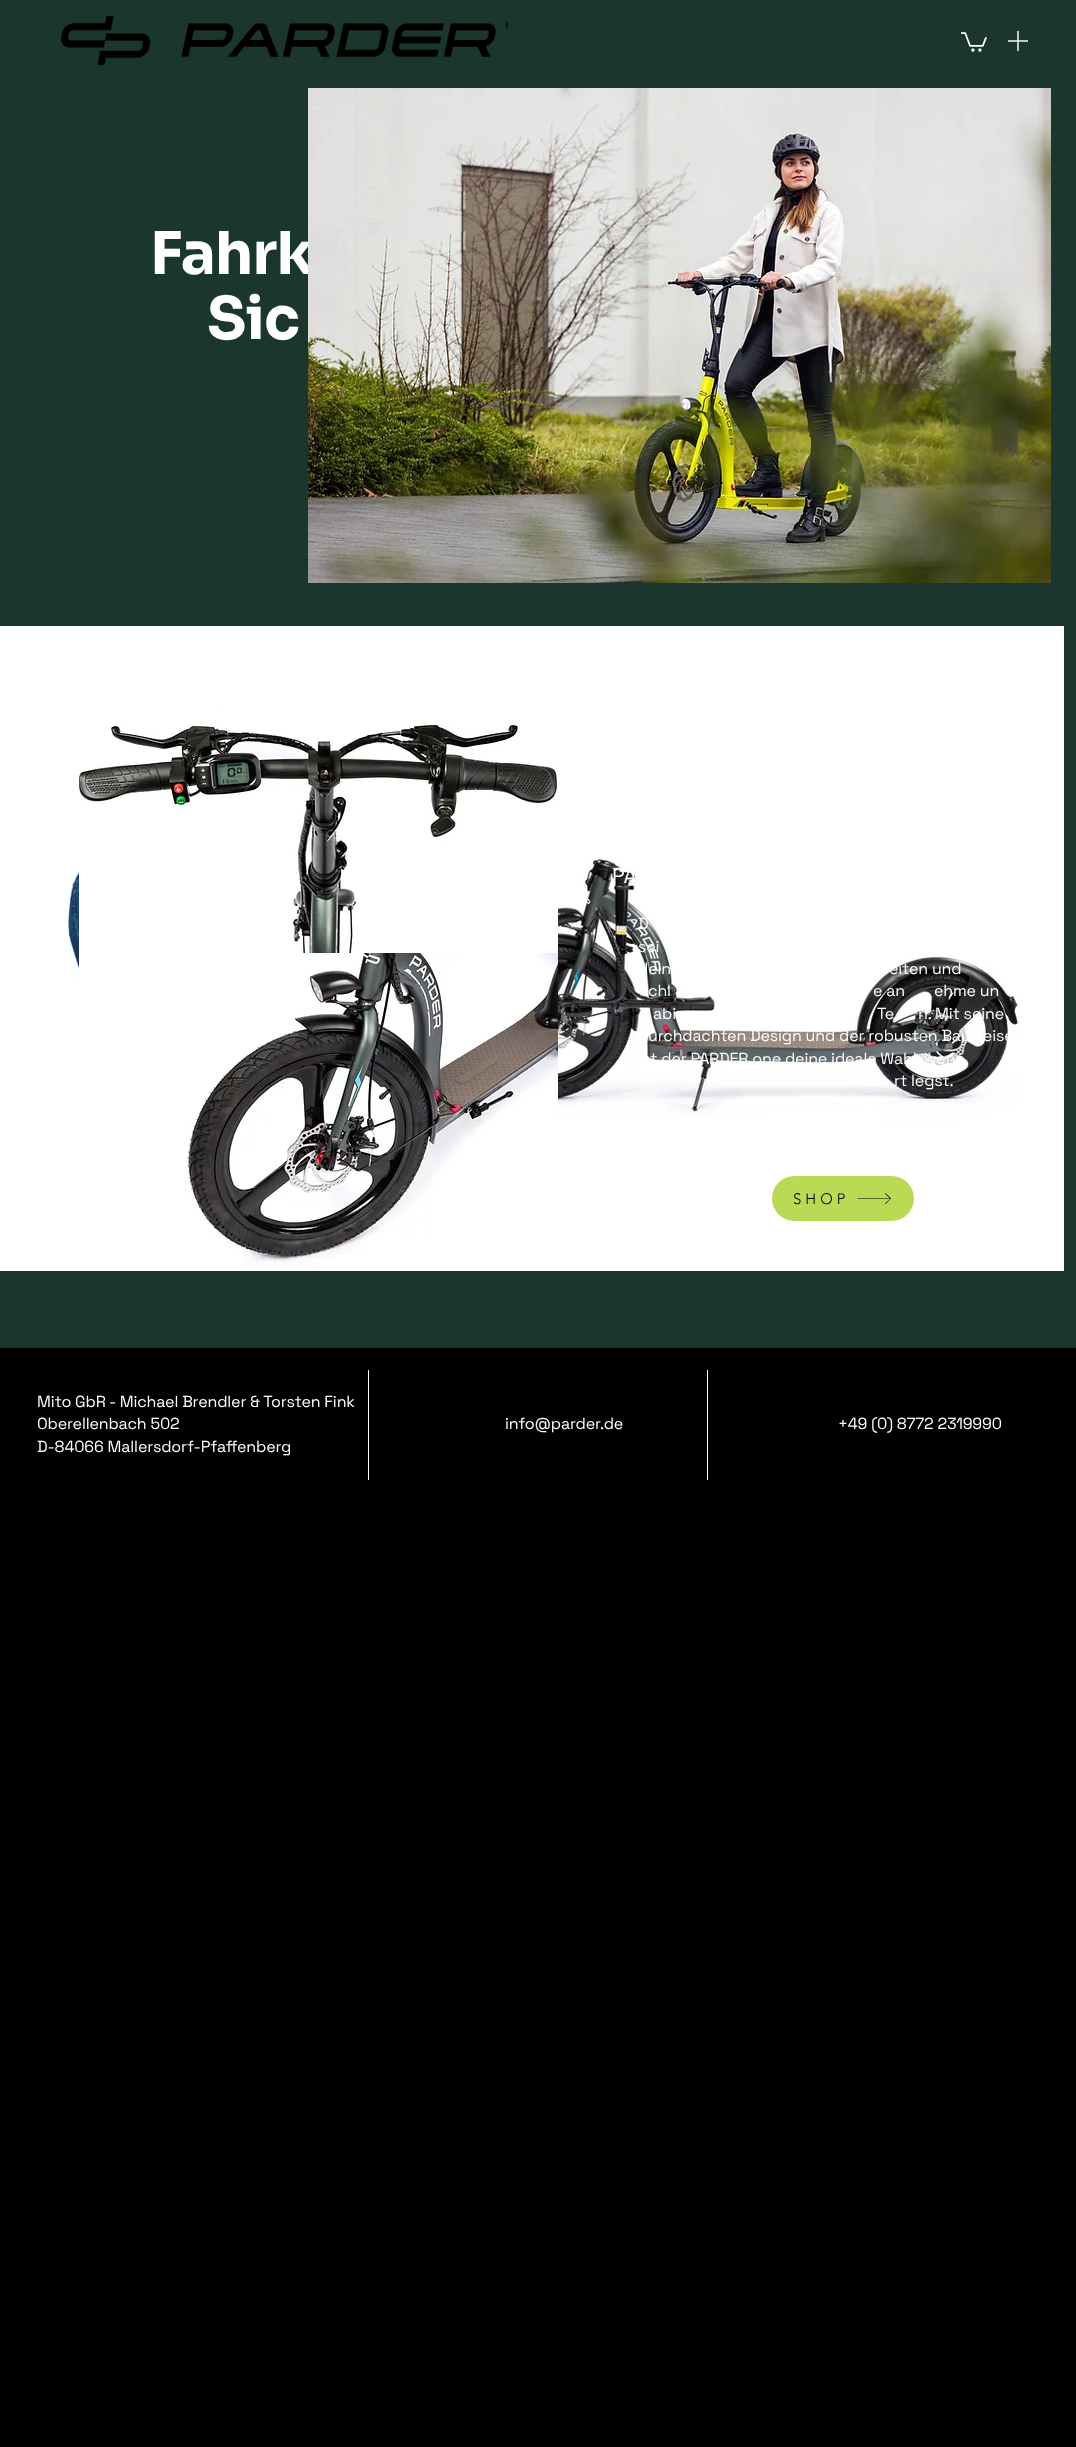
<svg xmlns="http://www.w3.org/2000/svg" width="1076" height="2447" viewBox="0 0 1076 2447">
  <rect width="100%" height="100%" fill="#000"/>
  <path d="M0 0h1076v1348H0z" fill="#1a362f"/>
  <image x="61" y="16" width="447" height="49" href="img/1.png"/>
  <image x="961" y="32" width="26" height="20" href="img/2.png"/>
  <image x="1007" y="30" width="21" height="21" href="img/3.png"/>
  <image x="0" y="626" width="416" height="645" href="img/5.png"/>
  <image x="416" y="626" width="648" height="645" href="img/6.png"/>
  <image x="79" y="706" width="479" height="247" href="img/7.png"/>
  <image x="79" y="953" width="479" height="312" href="img/8.png"/>
  <rect x="772" y="1176" width="142" height="45" rx="22.5" fill="#bada55"/>
  <path d="M885.5 1193L885 1193.5L890 1198.5H857.5V1199H890L885 1203.5L885.5 1204L891 1198.5Z" fill="#000"/>
  <path d="M368 1370h340v110H368z" fill="#fff"/>
  <path d="M369 1370h338v110H369z" fill="#000"/>
  <g font-family="Sora" font-size="59" font-weight="bold" letter-spacing="-1" fill="#fff">
    <text x="150" y="274">Fahrk</text>
    <text x="207" y="339">Sic</text>
  </g>
  <image x="308" y="88" width="743" height="495" href="img/4.png"/>
  <text x="612" y="883" font-family="Space Grotesk" font-size="21" fill="#fff">PA</text>
  <g font-family="Space Grotesk" font-size="16" letter-spacing="-0.15" fill="#fff">
    <text x="638" y="929">D</text>
    <text x="638" y="952">sei</text>
    <text x="638" y="974">dein</text>
    <text x="889" y="974">eiten und</text>
    <text x="648" y="996">chl</text>
    <text x="873" y="996">e an</text>
    <text x="934" y="996">ehme un</text>
    <text x="653" y="1019">abi</text>
    <text x="877" y="1019">Te</text>
    <text x="918" y="1019">n. Mit seine</text>
    <text x="648" y="1041">urchdachten Design und der robusten Bauweise</text>
    <text x="642" y="1064">st der PARDER one deine ideale Wahl, wenn</text>
    <text x="894" y="1086">rt legst.</text>
  </g>
  <text x="793" y="1204" font-family="'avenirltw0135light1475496'" font-size="15" font-weight="300" letter-spacing="4" fill="#000">SHOP</text>
  <g font-family="Space Grotesk" font-size="16" letter-spacing="-0.15" fill="#fff">
    <text x="37" y="1407">Mito GbR - Michael Brendler &amp; Torsten Fink</text>
    <text x="37" y="1429">Oberellenbach 502</text>
    <text x="37" y="1452">D-84066 Mallersdorf-Pfaffenberg</text>
    <text x="505" y="1429">info@parder.de</text>
    <text x="838" y="1429">+49 (0) 8772 2319990</text>
  </g>
</svg>
